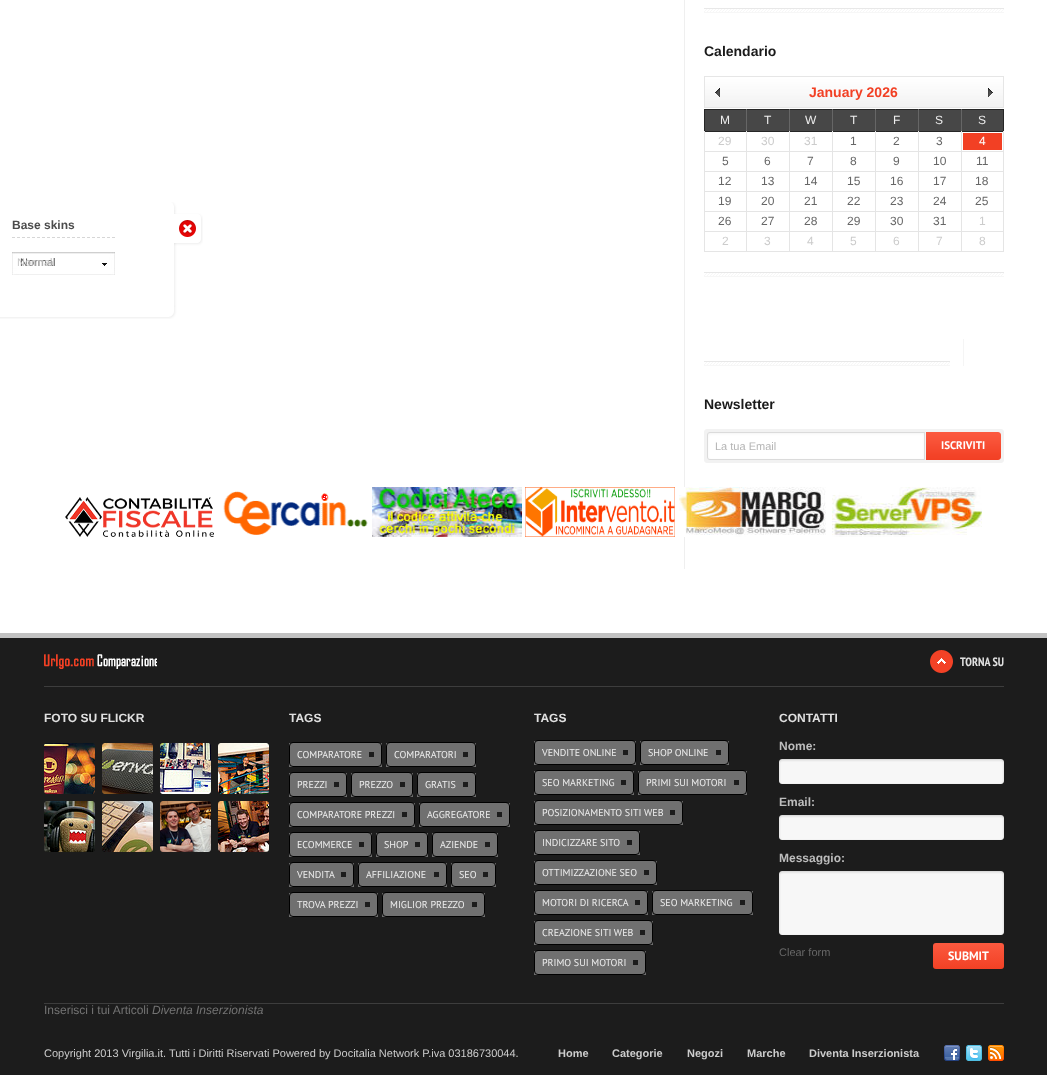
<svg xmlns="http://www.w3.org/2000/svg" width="1047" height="1075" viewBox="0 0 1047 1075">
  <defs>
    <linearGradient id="g1" gradientUnits="userSpaceOnUse" x1="969" y1="943" x2="969" y2="969"><stop offset="0" stop-color="#fb593f"/><stop offset="1" stop-color="#f24125"/></linearGradient>
  </defs>
  <rect width="100%" height="100%" fill="#fff"/>
  <image x="0" y="202" width="203" height="117" href="img/1.png"/>
  <image x="12" y="237" width="103" height="1" href="img/2.png"/>
  <image x="12" y="252" width="103" height="23" href="img/3.png"/>
  <image x="179" y="220" width="17" height="17" href="img/4.png"/>
  <path d="M684 0h1v569H684z" fill="#efefef"/>
  <image x="704" y="8" width="300" height="5" href="img/5.png"/>
  <image x="704" y="76" width="42" height="33" href="img/6.png"/>
  <image x="715" y="88" width="5" height="9" href="img/7.png"/>
  <path d="M704 76h1v32H704z" fill="#e6e6e6"/>
  <image x="746" y="76" width="215" height="33" href="img/8.png"/>
  <image x="961" y="76" width="43" height="33" href="img/9.png"/>
  <image x="988" y="88" width="5" height="9" href="img/10.png"/>
  <path d="M1003 76h1v32H1003z" fill="#e6e6e6"/>
  <path d="M705 110h41v21H705z" fill="#474747"/>
  <path d="M704 109h300v1H704z" fill="#262626"/>
  <path d="M704 109h1v22H704z" fill="#262626"/>
  <path d="M747 110h42v21H747z" fill="#474747"/>
  <path d="M746 109h1v22H746z" fill="#666"/>
  <path d="M790 110h42v21H790z" fill="#474747"/>
  <path d="M789 109h1v22H789z" fill="#666"/>
  <path d="M833 110h42v21H833z" fill="#474747"/>
  <path d="M832 109h1v22H832z" fill="#666"/>
  <path d="M876 110h42v21H876z" fill="#474747"/>
  <path d="M875 109h1v22H875z" fill="#666"/>
  <path d="M919 110h42v21H919z" fill="#474747"/>
  <path d="M918 109h1v22H918z" fill="#666"/>
  <path d="M962 110h41v21H962z" fill="#474747"/>
  <path d="M1003 109h1v22H1003z" fill="#262626"/>
  <path d="M961 109h1v22H961z" fill="#666"/>
  <path d="M704 131h300v1H704z" fill="#262626"/>
  <path d="M704 151h257v1H704z" fill="#e5e5e5"/>
  <path d="M704 131h1v21H704z" fill="#e5e5e5"/>
  <path d="M746 131h1v21H746z" fill="#e5e5e5"/>
  <path d="M789 131h1v21H789z" fill="#e5e5e5"/>
  <path d="M832 131h1v21H832z" fill="#e5e5e5"/>
  <path d="M875 131h1v21H875z" fill="#e5e5e5"/>
  <path d="M918 131h1v21H918z" fill="#e5e5e5"/>
  <path d="M1003 131h1v121H1003z" fill="#e5e5e5"/>
  <path d="M961 151h43v1H961z" fill="#e5e5e5"/>
  <path d="M961 131h1v21H961z" fill="#e5e5e5"/>
  <path d="M963 133h39v17H963z" fill="#f24024"/>
  <path d="M704 171h300v1H704z" fill="#e5e5e5"/>
  <path d="M704 152h1v20H704z" fill="#e5e5e5"/>
  <path d="M746 152h1v20H746z" fill="#e5e5e5"/>
  <path d="M789 152h1v20H789z" fill="#e5e5e5"/>
  <path d="M832 152h1v20H832z" fill="#e5e5e5"/>
  <path d="M875 152h1v20H875z" fill="#e5e5e5"/>
  <path d="M918 152h1v20H918z" fill="#e5e5e5"/>
  <path d="M961 152h1v20H961z" fill="#e5e5e5"/>
  <path d="M704 191h300v1H704z" fill="#e5e5e5"/>
  <path d="M704 172h1v20H704z" fill="#e5e5e5"/>
  <path d="M746 172h1v20H746z" fill="#e5e5e5"/>
  <path d="M789 172h1v20H789z" fill="#e5e5e5"/>
  <path d="M832 172h1v20H832z" fill="#e5e5e5"/>
  <path d="M875 172h1v20H875z" fill="#e5e5e5"/>
  <path d="M918 172h1v20H918z" fill="#e5e5e5"/>
  <path d="M961 172h1v20H961z" fill="#e5e5e5"/>
  <path d="M704 211h300v1H704z" fill="#e5e5e5"/>
  <path d="M704 192h1v20H704z" fill="#e5e5e5"/>
  <path d="M746 192h1v20H746z" fill="#e5e5e5"/>
  <path d="M789 192h1v20H789z" fill="#e5e5e5"/>
  <path d="M832 192h1v20H832z" fill="#e5e5e5"/>
  <path d="M875 192h1v20H875z" fill="#e5e5e5"/>
  <path d="M918 192h1v20H918z" fill="#e5e5e5"/>
  <path d="M961 192h1v20H961z" fill="#e5e5e5"/>
  <path d="M704 231h300v1H704z" fill="#e5e5e5"/>
  <path d="M704 212h1v20H704z" fill="#e5e5e5"/>
  <path d="M746 212h1v20H746z" fill="#e5e5e5"/>
  <path d="M789 212h1v20H789z" fill="#e5e5e5"/>
  <path d="M832 212h1v20H832z" fill="#e5e5e5"/>
  <path d="M875 212h1v20H875z" fill="#e5e5e5"/>
  <path d="M918 212h1v20H918z" fill="#e5e5e5"/>
  <path d="M961 212h1v20H961z" fill="#e5e5e5"/>
  <path d="M704 251h300v1H704z" fill="#e5e5e5"/>
  <path d="M704 232h1v20H704z" fill="#e5e5e5"/>
  <path d="M746 232h1v20H746z" fill="#e5e5e5"/>
  <path d="M789 232h1v20H789z" fill="#e5e5e5"/>
  <path d="M832 232h1v20H832z" fill="#e5e5e5"/>
  <path d="M875 232h1v20H875z" fill="#e5e5e5"/>
  <path d="M918 232h1v20H918z" fill="#e5e5e5"/>
  <path d="M961 232h1v20H961z" fill="#e5e5e5"/>
  <image x="704" y="272" width="300" height="5" href="img/5.png"/>
  <path d="M963 339h1v27H963z" fill="#f5f5f5"/>
  <image x="704" y="361" width="246" height="5" href="img/11.png"/>
  <image x="704" y="429" width="222" height="34" href="img/12.png"/>
  <image x="926" y="429" width="78" height="34" href="img/13.png"/>
  <image x="65" y="497" width="149" height="40" href="img/14.png"/>
  <image x="223" y="491" width="145" height="44" href="img/15.png"/>
  <image x="372" y="487" width="150" height="50" href="img/16.png"/>
  <image x="525" y="487" width="150" height="50" href="img/17.png"/>
  <image x="679" y="487" width="147" height="50" href="img/18.png"/>
  <image x="832" y="487" width="150" height="50" href="img/19.png"/>
  <path d="M0 638h1047v437H0z" fill="#1c1c1c"/>
  <path d="M0 633h1047v5H0z" fill="#c2c2c2"/>
  <image x="44" y="654" width="113" height="15" href="img/20.png"/>
  <image x="930" y="650" width="23" height="23" href="img/21.png"/>
  <path d="M44 686h960v1H44z" fill="#3d3d3d"/>
  <image x="44" y="743" width="51" height="51" href="img/22.png"/>
  <image x="102" y="743" width="51" height="51" href="img/23.png"/>
  <image x="160" y="743" width="51" height="51" href="img/24.png"/>
  <image x="218" y="743" width="51" height="51" href="img/25.png"/>
  <image x="44" y="801" width="51" height="51" href="img/26.png"/>
  <image x="102" y="801" width="51" height="51" href="img/27.png"/>
  <image x="160" y="801" width="51" height="51" href="img/28.png"/>
  <image x="218" y="801" width="51" height="51" href="img/29.png"/>
  <path d="M289 743h93v24H289z" fill="#707070"/>
  <rect x="289.5" y="742.5" width="92" height="24" rx="3.5" fill="none" stroke="#000"/>
  <path d="M369 752h5v5H369z" fill="#1c1c1c"/>
  <path d="M386 743h90v24H386z" fill="#707070"/>
  <rect x="386.5" y="742.5" width="89" height="24" rx="3.5" fill="none" stroke="#000"/>
  <path d="M463 752h5v5H463z" fill="#1c1c1c"/>
  <path d="M289 773h58v24H289z" fill="#707070"/>
  <rect x="289.5" y="772.5" width="57" height="24" rx="3.5" fill="none" stroke="#000"/>
  <path d="M334 782h5v5H334z" fill="#1c1c1c"/>
  <path d="M351 773h62v24H351z" fill="#707070"/>
  <rect x="351.5" y="772.5" width="61" height="24" rx="3.5" fill="none" stroke="#000"/>
  <path d="M400 782h5v5H400z" fill="#1c1c1c"/>
  <path d="M417 773h59v24H417z" fill="#707070"/>
  <rect x="417.5" y="772.5" width="58" height="24" rx="3.5" fill="none" stroke="#000"/>
  <path d="M463 782h5v5H463z" fill="#1c1c1c"/>
  <path d="M289 803h126v24H289z" fill="#707070"/>
  <rect x="289.5" y="802.5" width="125" height="24" rx="3.5" fill="none" stroke="#000"/>
  <path d="M402 812h5v5H402z" fill="#1c1c1c"/>
  <path d="M419 803h91v24H419z" fill="#707070"/>
  <rect x="419.5" y="802.5" width="90" height="24" rx="3.5" fill="none" stroke="#000"/>
  <path d="M497 812h5v5H497z" fill="#1c1c1c"/>
  <path d="M289 833h83v24H289z" fill="#707070"/>
  <rect x="289.5" y="832.5" width="82" height="24" rx="3.5" fill="none" stroke="#000"/>
  <path d="M359 842h5v5H359z" fill="#1c1c1c"/>
  <path d="M376 833h52v24H376z" fill="#707070"/>
  <rect x="376.5" y="832.5" width="51" height="24" rx="3.5" fill="none" stroke="#000"/>
  <path d="M415 842h5v5H415z" fill="#1c1c1c"/>
  <path d="M432 833h66v24H432z" fill="#707070"/>
  <rect x="432.5" y="832.5" width="65" height="24" rx="3.5" fill="none" stroke="#000"/>
  <path d="M485 842h5v5H485z" fill="#1c1c1c"/>
  <path d="M289 863h65v24H289z" fill="#707070"/>
  <rect x="289.5" y="862.5" width="64" height="24" rx="3.5" fill="none" stroke="#000"/>
  <path d="M341 872h5v5H341z" fill="#1c1c1c"/>
  <path d="M358 863h89v24H358z" fill="#707070"/>
  <rect x="358.5" y="862.5" width="88" height="24" rx="3.5" fill="none" stroke="#000"/>
  <path d="M434 872h5v5H434z" fill="#1c1c1c"/>
  <path d="M451 863h45v24H451z" fill="#707070"/>
  <rect x="451.5" y="862.5" width="44" height="24" rx="3.5" fill="none" stroke="#000"/>
  <path d="M483 872h5v5H483z" fill="#1c1c1c"/>
  <path d="M289 893h89v24H289z" fill="#707070"/>
  <rect x="289.5" y="892.5" width="88" height="24" rx="3.5" fill="none" stroke="#000"/>
  <path d="M365 902h5v5H365z" fill="#1c1c1c"/>
  <path d="M382 893h103v24H382z" fill="#707070"/>
  <rect x="382.5" y="892.5" width="102" height="24" rx="3.5" fill="none" stroke="#000"/>
  <path d="M472 902h5v5H472z" fill="#1c1c1c"/>
  <path d="M534 741h102v24H534z" fill="#707070"/>
  <rect x="534.5" y="740.5" width="101" height="24" rx="3.5" fill="none" stroke="#000"/>
  <path d="M623 750h5v5H623z" fill="#1c1c1c"/>
  <path d="M640 741h89v24H640z" fill="#707070"/>
  <rect x="640.5" y="740.5" width="88" height="24" rx="3.5" fill="none" stroke="#000"/>
  <path d="M716 750h5v5H716z" fill="#1c1c1c"/>
  <path d="M534 771h100v24H534z" fill="#707070"/>
  <rect x="534.5" y="770.5" width="99" height="24" rx="3.5" fill="none" stroke="#000"/>
  <path d="M621 780h5v5H621z" fill="#1c1c1c"/>
  <path d="M638 771h109v24H638z" fill="#707070"/>
  <rect x="638.5" y="770.5" width="108" height="24" rx="3.5" fill="none" stroke="#000"/>
  <path d="M734 780h5v5H734z" fill="#1c1c1c"/>
  <path d="M534 801h149v24H534z" fill="#707070"/>
  <rect x="534.5" y="800.5" width="148" height="24" rx="3.5" fill="none" stroke="#000"/>
  <path d="M670 810h5v5H670z" fill="#1c1c1c"/>
  <path d="M534 831h106v24H534z" fill="#707070"/>
  <rect x="534.5" y="830.5" width="105" height="24" rx="3.5" fill="none" stroke="#000"/>
  <path d="M627 840h5v5H627z" fill="#1c1c1c"/>
  <path d="M534 861h123v24H534z" fill="#707070"/>
  <rect x="534.5" y="860.5" width="122" height="24" rx="3.5" fill="none" stroke="#000"/>
  <path d="M644 870h5v5H644z" fill="#1c1c1c"/>
  <path d="M534 891h114v24H534z" fill="#707070"/>
  <rect x="534.5" y="890.5" width="113" height="24" rx="3.5" fill="none" stroke="#000"/>
  <path d="M635 900h5v5H635z" fill="#1c1c1c"/>
  <path d="M652 891h101v24H652z" fill="#707070"/>
  <rect x="652.5" y="890.5" width="100" height="24" rx="3.5" fill="none" stroke="#000"/>
  <path d="M740 900h5v5H740z" fill="#1c1c1c"/>
  <path d="M534 921h119v24H534z" fill="#707070"/>
  <rect x="534.5" y="920.5" width="118" height="24" rx="3.5" fill="none" stroke="#000"/>
  <path d="M640 930h5v5H640z" fill="#1c1c1c"/>
  <path d="M534 951h112v24H534z" fill="#707070"/>
  <rect x="534.5" y="950.5" width="111" height="24" rx="3.5" fill="none" stroke="#000"/>
  <path d="M633 960h5v5H633z" fill="#1c1c1c"/>
  <image x="779" y="759" width="225" height="25" href="img/30.png"/>
  <image x="779" y="815" width="225" height="25" href="img/30.png"/>
  <image x="779" y="871" width="225" height="64" href="img/31.png"/>
  <rect x="933" y="943" width="71" height="26" rx="3" fill="url(#g1)"/>
  <path d="M44 1003h960v1H44z" fill="#3d3d3d"/>
  <image x="944" y="1045" width="16" height="16" href="img/32.png"/>
  <image x="966" y="1045" width="16" height="16" href="img/33.png"/>
  <image x="988" y="1045" width="16" height="16" href="img/34.png"/>
  <text x="12" y="229" font-family="Liberation Sans" font-size="12" font-weight="bold" fill="#4c4c4c">Base skins</text>
  <text x="20" y="266" font-family="Liberation Sans" font-size="11" fill="#4c4c4c">Normal</text>
  <text x="17" y="266" font-family="Liberation Sans" font-size="11" fill="#c5c5c5">Normal</text>
  <text x="704" y="56" font-family="Liberation Sans" font-size="14" font-weight="bold" fill="#1a1a1a">Calendario</text>
  <text x="809" y="97" font-family="Liberation Sans" font-size="14" font-weight="bold" fill="#f24024">January 2026</text>
  <g font-family="Liberation Sans" font-size="12" fill="#ededed">
    <text x="720" y="124">M</text>
    <text x="764" y="124">T</text>
    <text x="805" y="124">W</text>
    <text x="850" y="124">T</text>
    <text x="893" y="124">F</text>
    <text x="935" y="124">S</text>
    <text x="978" y="124">S</text>
  </g>
  <g font-family="Liberation Sans" font-size="12" fill="#ccc">
    <text x="718" y="145">29</text>
    <text x="761" y="145">30</text>
    <text x="804" y="145">31</text>
  </g>
  <g font-family="Liberation Sans" font-size="12" fill="#676767">
    <text x="850" y="145">1</text>
    <text x="893" y="145">2</text>
    <text x="936" y="145">3</text>
  </g>
  <text x="979" y="145" font-family="Liberation Sans" font-size="12" fill="#fff">4</text>
  <g font-family="Liberation Sans" font-size="12" fill="#676767">
    <text x="722" y="165">5</text>
    <text x="764" y="165">6</text>
    <text x="807" y="165">7</text>
    <text x="850" y="165">8</text>
    <text x="893" y="165">9</text>
    <text x="933" y="165">10</text>
    <text x="976" y="165">11</text>
    <text x="718" y="185">12</text>
    <text x="761" y="185">13</text>
    <text x="804" y="185">14</text>
    <text x="847" y="185">15</text>
    <text x="890" y="185">16</text>
    <text x="933" y="185">17</text>
    <text x="975" y="185">18</text>
    <text x="718" y="205">19</text>
    <text x="761" y="205">20</text>
    <text x="804" y="205">21</text>
    <text x="847" y="205">22</text>
    <text x="890" y="205">23</text>
    <text x="933" y="205">24</text>
    <text x="975" y="205">25</text>
    <text x="718" y="225">26</text>
    <text x="761" y="225">27</text>
    <text x="804" y="225">28</text>
    <text x="847" y="225">29</text>
    <text x="890" y="225">30</text>
    <text x="933" y="225">31</text>
  </g>
  <g font-family="Liberation Sans" font-size="12" fill="#ccc">
    <text x="979" y="225">1</text>
    <text x="722" y="245">2</text>
    <text x="764" y="245">3</text>
    <text x="807" y="245">4</text>
    <text x="850" y="245">5</text>
    <text x="893" y="245">6</text>
    <text x="936" y="245">7</text>
    <text x="979" y="245">8</text>
  </g>
  <text x="704" y="409" font-family="Liberation Sans" font-size="14" font-weight="bold" fill="#1a1a1a">Newsletter</text>
  <text x="715" y="450" font-family="Liberation Sans" font-size="11" fill="#b5b5b5">La tua Email</text>
  <text x="941" y="449" font-family="PT Sans" font-size="11" font-weight="bold" fill="#fff">ISCRIVITI</text>
  <text x="960" y="666" font-family="PT Sans Narrow" font-size="12" font-weight="bold" fill="#e0e0e0">TORNA SU</text>
  <g font-family="Liberation Sans" font-size="12" font-weight="bold" fill="#e0e0e0">
    <text x="44" y="722">FOTO SU FLICKR</text>
    <text x="289" y="722">TAGS</text>
  </g>
  <g font-family="PT Sans" font-size="10" fill="#ededed">
    <text x="297" y="758">COMPARATORE</text>
    <text x="394" y="758">COMPARATORI</text>
    <text x="297" y="788">PREZZI</text>
    <text x="359" y="788">PREZZO</text>
    <text x="425" y="788">GRATIS</text>
    <text x="297" y="818">COMPARATORE PREZZI</text>
    <text x="427" y="818">AGGREGATORE</text>
    <text x="297" y="848">ECOMMERCE</text>
    <text x="384" y="848">SHOP</text>
    <text x="440" y="848">AZIENDE</text>
    <text x="297" y="878">VENDITA</text>
    <text x="366" y="878">AFFILIAZIONE</text>
    <text x="459" y="878">SEO</text>
    <text x="297" y="908">TROVA PREZZI</text>
    <text x="390" y="908">MIGLIOR PREZZO</text>
  </g>
  <text x="534" y="722" font-family="Liberation Sans" font-size="12" font-weight="bold" fill="#e0e0e0">TAGS</text>
  <g font-family="PT Sans" font-size="10" fill="#ededed">
    <text x="542" y="756">VENDITE ONLINE</text>
    <text x="648" y="756">SHOP ONLINE</text>
    <text x="542" y="786">SEO MARKETING</text>
    <text x="646" y="786">PRIMI SUI MOTORI</text>
    <text x="542" y="816">POSIZIONAMENTO SITI WEB</text>
    <text x="542" y="846">INDICIZZARE SITO</text>
    <text x="542" y="876">OTTIMIZZAZIONE SEO</text>
    <text x="542" y="906">MOTORI DI RICERCA</text>
    <text x="660" y="906">SEO MARKETING</text>
    <text x="542" y="936">CREAZIONE SITI WEB</text>
    <text x="542" y="966">PRIMO SUI MOTORI</text>
  </g>
  <text x="779" y="722" font-family="Liberation Sans" font-size="12" font-weight="bold" fill="#e0e0e0">CONTATTI</text>
  <g font-family="Liberation Sans" font-size="12" font-weight="bold" fill="#bdbdbd">
    <text x="779" y="750">Nome:</text>
    <text x="779" y="806">Email:</text>
    <text x="779" y="862">Messaggio:</text>
  </g>
  <text x="779" y="956" font-family="Liberation Sans" font-size="11" fill="#676767">Clear form</text>
  <text x="948" y="960" font-family="PT Sans" font-size="12" font-weight="bold" fill="#fff">SUBMIT</text>
  <text x="44" y="1014" font-family="Liberation Sans" font-size="12" fill="#737373">Inserisci i tui Articoli</text>
  <text x="152" y="1014" font-family="Liberation Sans" font-size="12" font-style="italic" fill="#737373">Diventa Inserzionista</text>
  <text x="44" y="1057" font-family="Liberation Sans" font-size="11" fill="#ccc">Copyright 2013 Virgilia.it. Tutti i Diritti Riservati Powered by Docitalia Network P.iva 03186730044.</text>
  <g font-family="Liberation Sans" font-size="11" font-weight="bold" fill="#ccc">
    <text x="558" y="1057">Home</text>
    <text x="612" y="1057">Categorie</text>
    <text x="687" y="1057">Negozi</text>
    <text x="747" y="1057">Marche</text>
    <text x="809" y="1057">Diventa Inserzionista</text>
  </g>
</svg>
